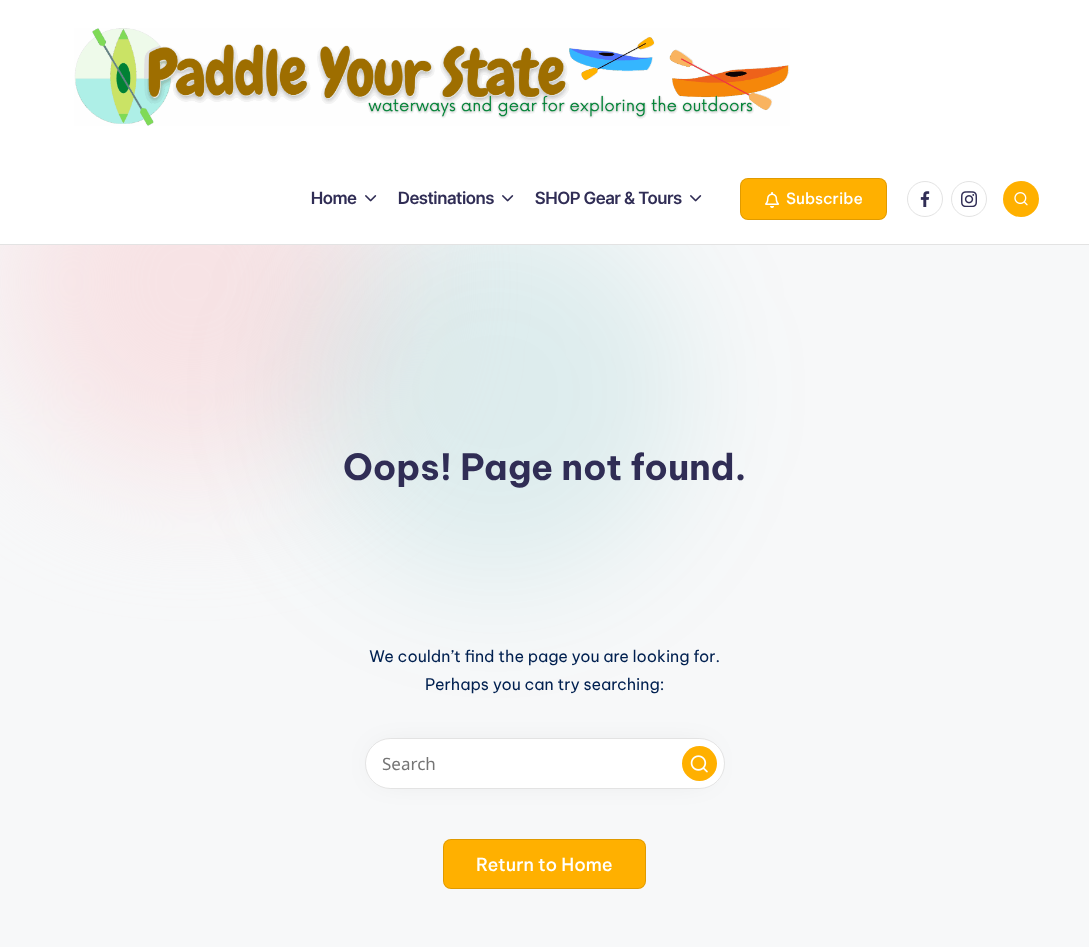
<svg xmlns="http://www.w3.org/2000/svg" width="1089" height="947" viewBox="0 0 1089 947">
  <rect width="100%" height="100%" fill="#f7f8f9"/>
  <rect y="90" width="384" height="384" rx="192" fill="#f7e3e5" filter="blur(64px)"/>
  <rect x="304" y="200" width="384" height="384" rx="192" fill="#04868b1a" filter="blur(64px)"/>
  <path d="M0 0h1089v244H0z" fill="#fff"/>
  <path d="M0 244h1089v1H0z" fill="#e3e3e3"/>
  <image x="74" y="28" width="716" height="98" href="img/1.png"/>
  <image x="365" y="195" width="12" height="7" href="img/2.png"/>
  <image x="502" y="195" width="12" height="7" href="img/2.png"/>
  <image x="690" y="195" width="12" height="7" href="img/2.png"/>
  <rect x="740" y="178" width="147" height="42" rx="8" fill="#ffb000"/>
  <rect x="740.5" y="178.5" width="146" height="41" rx="7.5" fill="none" stroke="#0000001f"/>
  <image x="765" y="192" width="14" height="16" href="img/3.png"/>
  <circle cx="925" cy="199" r="17.5" fill="none" stroke="#e3e3e3"/>
  <image x="920" y="191" width="10" height="16" href="img/4.png"/>
  <circle cx="969" cy="199" r="17.5" fill="none" stroke="#e3e3e3"/>
  <image x="961" y="191" width="16" height="16" href="img/5.png"/>
  <circle cx="1021" cy="199" r="18" fill="#ffb000"/>
  <image x="1014" y="192" width="14" height="14" href="img/6.png"/>
  <rect x="378" y="754" width="328" height="19" rx="9.5" fill="#00000026" filter="blur(16px)"/>
  <rect x="365" y="738" width="360" height="51" rx="25.5" fill="#fff"/>
  <rect x="365.5" y="738.5" width="359" height="50" rx="25" fill="none" stroke="#b9b9b966"/>
  <circle cx="699.5" cy="763.5" r="17.5" fill="#ffb000"/>
  <image x="690" y="755" width="18" height="18" href="img/7.png"/>
  <rect x="443" y="839" width="203" height="50" rx="8" fill="#ffb000"/>
  <rect x="443.5" y="839.5" width="202" height="49" rx="7.5" fill="none" stroke="#0000001f"/>
  <g font-family="Inter Tight" font-size="17" font-weight="600" fill="#302d55">
    <text x="311" y="204">Home</text>
    <text x="398" y="204">Destinations</text>
    <text x="535" y="204">SHOP Gear &amp; Tours</text>
  </g>
  <text x="786" y="204" font-family="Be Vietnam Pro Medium" font-size="15.5" font-weight="500" fill="#fff">Subscribe</text>
  <text x="343" y="480" font-family="Be Vietnam Pro" font-size="36" font-weight="bold" fill="#302d55">Oops! Page not found.</text>
  <g font-family="Be Vietnam Pro" font-size="16" fill="#002050">
    <text x="369" y="662">We couldn’t find the page you are looking for.</text>
    <text x="425" y="690">Perhaps you can try searching:</text>
  </g>
  <text x="382" y="770" font-family="Noto Sans" font-size="17" fill="#757575">Search</text>
  <text x="476" y="871" font-family="Be Vietnam Pro Medium" font-size="18" font-weight="500" fill="#fff">Return to Home</text>
</svg>
